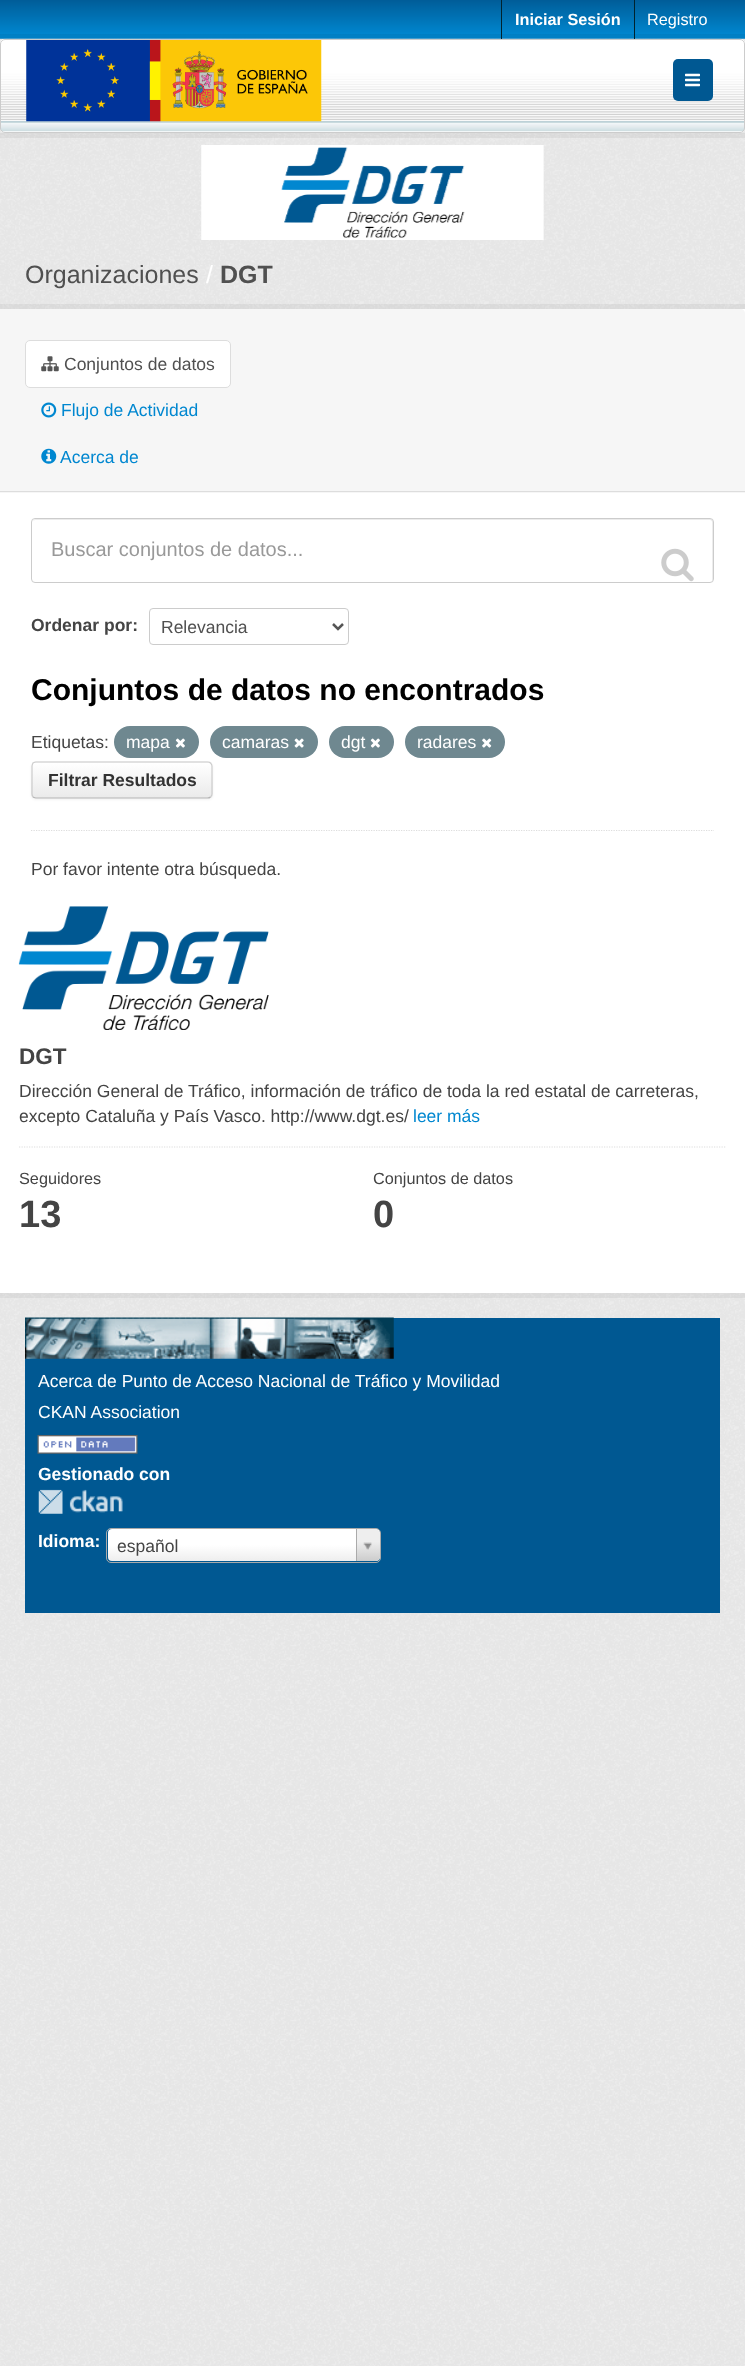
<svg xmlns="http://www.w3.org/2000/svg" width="745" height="2366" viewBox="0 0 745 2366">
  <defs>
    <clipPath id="clip1"><rect x="31" y="761" width="182" height="38" rx="5"/></clipPath>
    <linearGradient id="g1" gradientUnits="userSpaceOnUse" x1="122" y1="763" x2="122" y2="798"><stop offset="0" stop-color="#fff"/><stop offset="1" stop-color="#eaeaea"/></linearGradient>
    <linearGradient id="g2" gradientUnits="userSpaceOnUse" x1="244" y1="1561" x2="244" y2="1529"><stop offset="0" stop-color="#eee"/><stop offset="0.5" stop-color="#fff"/></linearGradient>
    <clipPath id="clip2"><rect x="108" y="1529" width="272" height="32" rx="4"/></clipPath>
    <linearGradient id="g3" gradientUnits="userSpaceOnUse" x1="369" y1="1561" x2="369" y2="1529"><stop offset="0" stop-color="#ccc"/><stop offset="0.6" stop-color="#eee"/></linearGradient>
  </defs>
  <rect width="100%" height="100%" fill="#eee"/>
  <image x="0" y="38" width="745" height="2328" href="img/1.png"/>
  <image x="0" y="0" width="745" height="39" href="img/2.png"/>
  <path d="M-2.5 36.5h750v99H-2.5z" fill="none" stroke="#0000000d" stroke-width="5"/>
  <rect y="39" width="745" height="94" rx="5" fill="#fff"/>
  <image x="0" y="38" width="745" height="94" href="img/3.png"/>
  <path d="M501 0h1v39H501z" fill="#00232e"/>
  <path d="M634 0h1v39H634z" fill="#00232e"/>
  <rect x="0.5" y="39.5" width="744" height="93" rx="4.5" fill="none" stroke="#ccc"/>
  <image x="26" y="40" width="296" height="82" href="img/4.png"/>
  <rect x="673" y="59" width="40" height="42" rx="5" fill="#005892"/>
  <image x="685" y="73" width="15" height="14" href="img/5.png"/>
  <image x="201" y="145" width="343" height="95" href="img/6.png"/>
  <path d="M-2.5 306.5h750v989H-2.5z" fill="none" stroke="#0000000d" stroke-width="5"/>
  <path d="M0 309h745v984H0z" fill="#fff"/>
  <path d="M0 309H741C743 309 745 311 745 313V493H0Z" fill="#f6f6f6"/>
  <path d="M0 491h745v1H0z" fill="#ddd"/>
  <rect x="25.5" y="340.5" width="205" height="47" rx="4.5" fill="#fff" stroke="#ddd"/>
  <image x="41" y="356" width="18" height="16" href="img/7.png"/>
  <image x="41" y="402" width="16" height="16" href="img/8.png"/>
  <image x="41" y="448" width="16" height="16" href="img/9.png"/>
  <path d="M31 830.5H714" fill="none" stroke="#ddd" stroke-width="1.2" stroke-dasharray="1.25 1.25"/>
  <path d="M35 520H710C711 520 712 521 712 522V581C713 580 713 579 713 578V522C713 520 712 519 710 519H36C34 519 34 520 33 521Z" fill="#ececec"/>
  <rect x="31.5" y="518.5" width="682" height="64" rx="3.5" fill="none" stroke="#ccc"/>
  <image x="661" y="548" width="33" height="34" href="img/10.png"/>
  <rect x="149.5" y="608.5" width="199" height="36" rx="3.5" fill="none" stroke="#ccc"/>
  <path d="M333 624L338 629L343 624" fill="none" stroke="#555" stroke-width="2.5"/>
  <rect x="114" y="726" width="85" height="32" rx="16" fill="#6f8890"/>
  <image x="175" y="738" width="10" height="10" href="img/11.png"/>
  <rect x="210" y="726" width="108" height="32" rx="16" fill="#6f8890"/>
  <image x="294" y="738" width="10" height="10" href="img/12.png"/>
  <rect x="329" y="726" width="65" height="32" rx="16" fill="#6f8890"/>
  <image x="370" y="738" width="10" height="10" href="img/11.png"/>
  <rect x="405" y="726" width="100" height="32" rx="16" fill="#6f8890"/>
  <image x="482" y="738" width="10" height="10" href="img/13.png"/>
  <rect x="31" y="763" width="182" height="37" rx="5" fill="#0000000d" filter="blur(1px)"/>
  <rect x="31" y="761" width="182" height="38" rx="5" fill="#f7f7f7"/>
  <g clip-path="url(#clip1)">
    <path d="M31 763h182v35H31z" fill="url(#g1)"/>
  </g>
  <path d="M210.5 797C210 797.5 208.5 798 207.5 798H36C35 798 34 797.5 33 797" fill="none" stroke="#b3b3b3" stroke-width="1.2"/>
  <path d="M33 797C32.5 796 32 795 32 794V766C32 765 32.5 764 33 763C34 762.5 35 762 36 762H207.5C208.5 762 210 762.5 210.5 763C211.5 764 212 765 212 766V794C212 795 211.5 796 210.5 797" fill="none" stroke="#ccc" stroke-width="1.2"/>
  <image x="18" y="906" width="251" height="124" href="img/14.png"/>
  <path d="M19 1147H726" fill="none" stroke="#ddd" stroke-width="1.2" stroke-dasharray="1.25 1.25"/>
  <path d="M25 1318h695v295H25z" fill="#005892"/>
  <image x="25" y="1317" width="369" height="42" href="img/15.png"/>
  <image x="37" y="1435" width="101" height="19" href="img/16.png"/>
  <image x="38" y="1489" width="85" height="25" href="img/17.png"/>
  <rect x="108" y="1529" width="272" height="32" rx="4" fill="url(#g2)"/>
  <rect x="106.5" y="1528.5" width="274" height="34" rx="4.5" fill="none" stroke="#aaa"/>
  <g clip-path="url(#clip2)">
    <path d="M356 1529H375C378 1529 380 1531 380 1534V1556C380 1559 378 1561 375 1561H356Z" fill="url(#g3)"/>
  </g>
  <path d="M356 1529h1v32H356z" fill="#aaa"/>
  <image x="363" y="1542" width="9" height="8" href="img/18.png"/>
  <text x="515" y="25" font-family="Liberation Sans" font-size="16.25" font-weight="bold" fill="#fff">Iniciar Sesión</text>
  <text x="647" y="25" font-family="Liberation Sans" font-size="16.25" fill="#fff">Registro</text>
  <text x="25" y="283" font-family="Liberation Sans" font-size="25" fill="#505050">Organizaciones</text>
  <text x="206" y="283" font-family="Liberation Sans" font-size="25" fill="#fff">/</text>
  <text x="220" y="283" font-family="Liberation Sans" font-size="25" font-weight="bold" fill="#505050">DGT</text>
  <text x="64" y="370" font-family="Liberation Sans" font-size="17.5" fill="#505050">Conjuntos de datos</text>
  <g font-family="Liberation Sans" font-size="17.5" fill="#0087d0">
    <text x="61" y="416">Flujo de Actividad</text>
    <text x="60" y="463">Acerca de</text>
  </g>
  <text x="51" y="556" font-family="Liberation Sans" font-size="20" fill="#999">Buscar conjuntos de datos...</text>
  <text x="31" y="631" font-family="Liberation Sans" font-size="17.5" font-weight="bold" fill="#444">Ordenar por:</text>
  <text x="161" y="633" font-family="Liberation Sans" font-size="17.5" fill="#505050">Relevancia</text>
  <text x="31" y="700" font-family="Liberation Sans" font-size="30" font-weight="bold" fill="#000">Conjuntos de datos no encontrados</text>
  <text x="31" y="748" font-family="Liberation Sans" font-size="17.5" fill="#444">Etiquetas:</text>
  <g font-family="Liberation Sans" font-size="17.5" fill="#fff">
    <text x="126" y="748">mapa</text>
    <text x="222" y="748">camaras</text>
    <text x="341" y="748">dgt</text>
    <text x="417" y="748">radares</text>
  </g>
  <text x="48" y="786" font-family="Liberation Sans" font-size="17.5" font-weight="bold" fill="#333">Filtrar Resultados</text>
  <text x="31" y="875" font-family="Liberation Sans" font-size="17.5" fill="#444">Por favor intente otra búsqueda.</text>
  <text x="19" y="1064" font-family="Liberation Sans" font-size="22.5" font-weight="bold" fill="#444">DGT</text>
  <g font-family="Liberation Sans" font-size="17.5" fill="#444">
    <text x="19" y="1097">Dirección General de Tráfico, información de tráfico de toda la red estatal de carreteras,</text>
    <text x="19" y="1122">excepto Cataluña y País Vasco. http://www.dgt.es/</text>
  </g>
  <text x="413" y="1122" font-family="Liberation Sans" font-size="17.5" fill="#0087d0">leer más</text>
  <text x="19" y="1184" font-family="Liberation Sans" font-size="16.25" fill="#444">Seguidores</text>
  <text x="19" y="1227" font-family="Liberation Sans" font-size="38" font-weight="bold" fill="#444">13</text>
  <text x="373" y="1184" font-family="Liberation Sans" font-size="16.25" fill="#444">Conjuntos de datos</text>
  <text x="373" y="1227" font-family="Liberation Sans" font-size="38" font-weight="bold" fill="#444">0</text>
  <g font-family="Liberation Sans" font-size="17.5" fill="#fff">
    <text x="38" y="1387">Acerca de Punto de Acceso Nacional de Tráfico y Movilidad</text>
    <text x="38" y="1418">CKAN Association</text>
  </g>
  <g font-family="Liberation Sans" font-size="17.5" font-weight="bold" fill="#fff">
    <text x="38" y="1480">Gestionado con</text>
    <text x="38" y="1547">Idioma:</text>
  </g>
  <text x="117" y="1552" font-family="Liberation Sans" font-size="17.5" fill="#444">español</text>
</svg>
